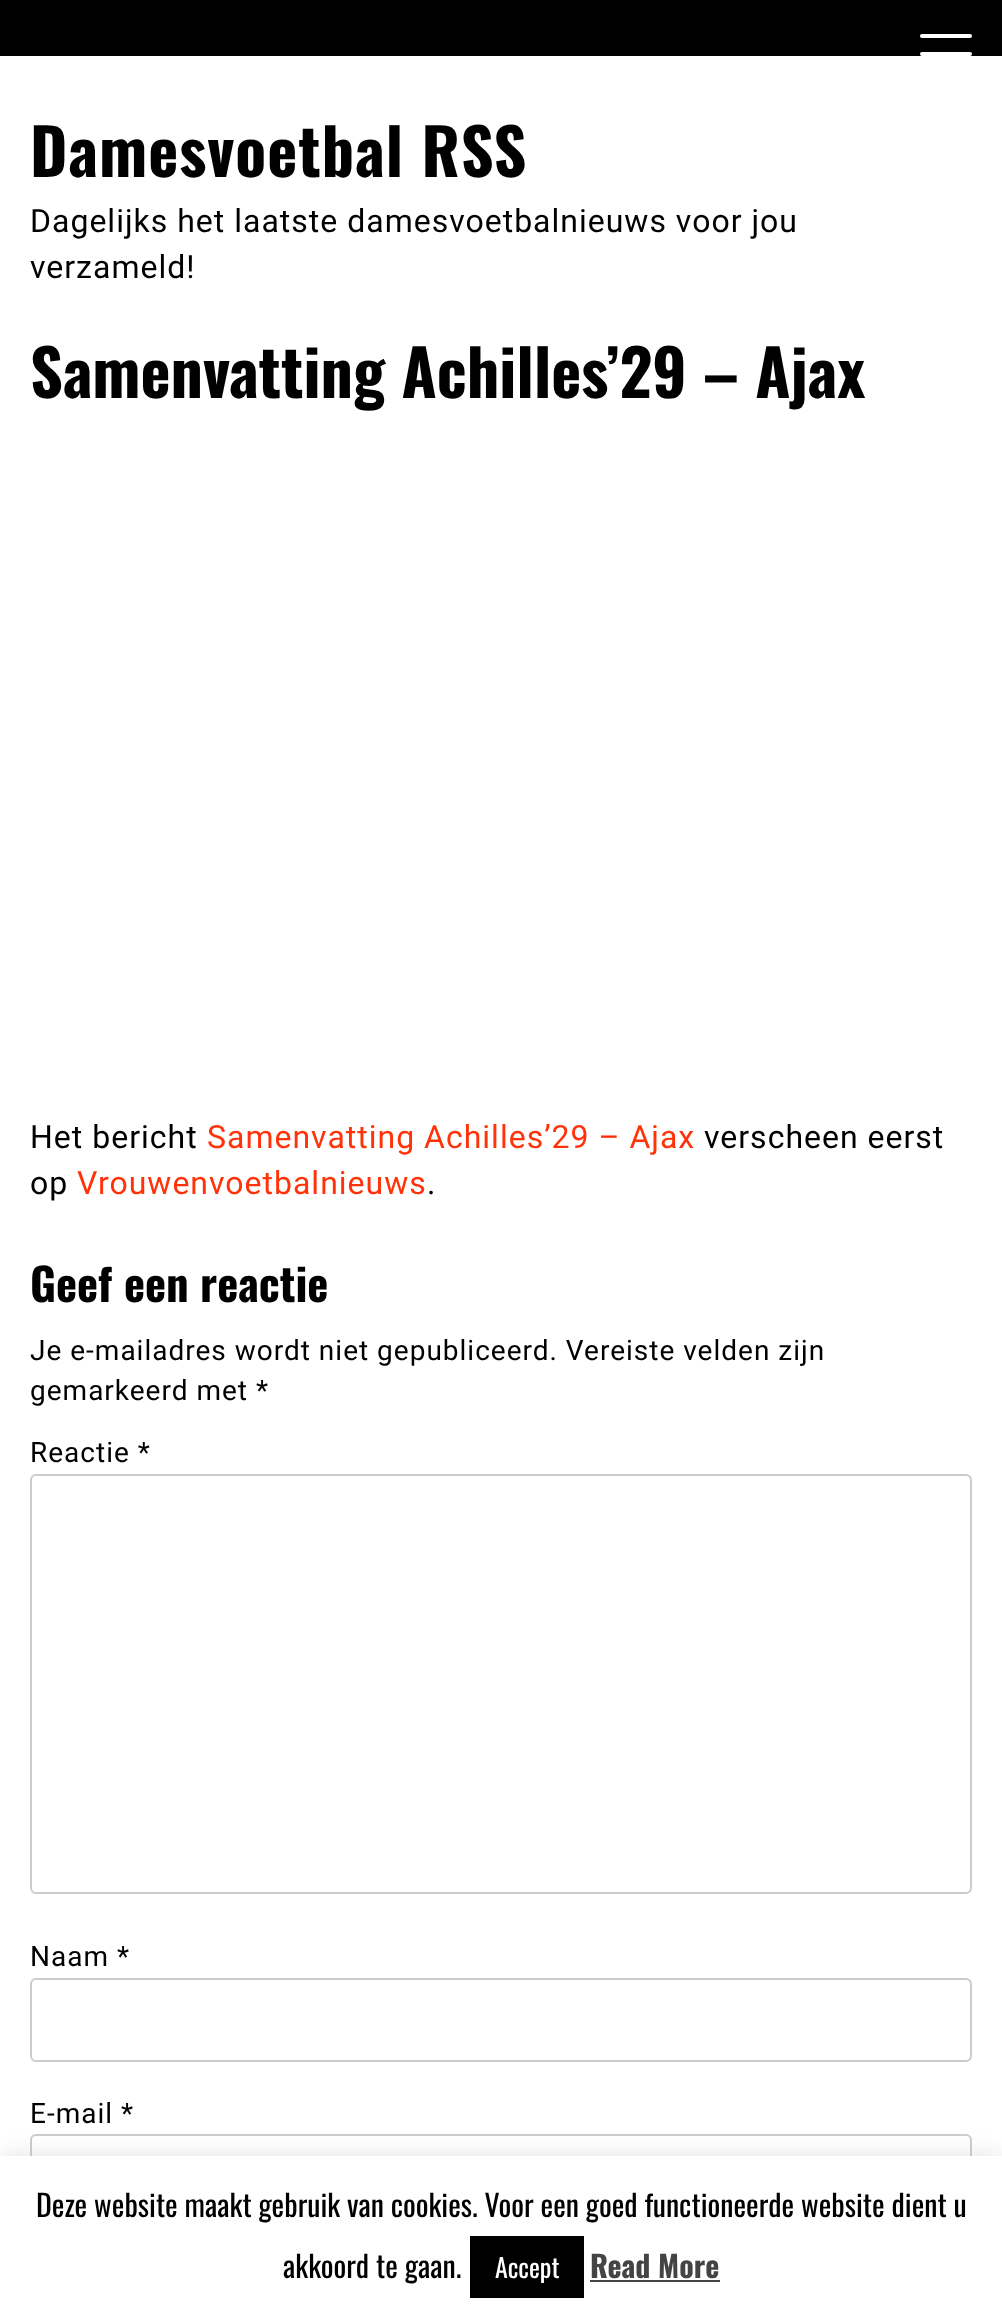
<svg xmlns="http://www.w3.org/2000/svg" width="1002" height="2321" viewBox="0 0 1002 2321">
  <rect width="100%" height="100%" fill="#fff"/>
  <path d="M0 0h1002v56H0z" fill="#000"/>
  <rect x="920" y="52" width="52" height="4" rx="2" fill="#fff"/>
  <rect x="920" y="34" width="52" height="4" rx="2" fill="#fff"/>
  <rect x="31" y="1475" width="940" height="418" rx="5" fill="none" stroke="#ccc" stroke-width="2"/>
  <rect x="31" y="1979" width="940" height="82" rx="5" fill="none" stroke="#ccc" stroke-width="2"/>
  <rect x="31" y="2135" width="940" height="82" rx="5" fill="none" stroke="#ccc" stroke-width="2"/>
  <path d="M0 2154h1002v166H0z" fill="#acabab4d" filter="blur(10px)"/>
  <path d="M0 2156h1002v165H0z" fill="#fff"/>
  <path d="M470 2236h114v62H470z" fill="#000"/>
  <path d="M590 2280h130v2H590z" fill="#444"/>
  <text x="30" y="177" font-family="Oswald" font-size="64" font-weight="bold" letter-spacing="1" fill="#000">Damesvoetbal RSS</text>
  <g font-family="Roboto" font-size="32" letter-spacing="1" fill="#000">
    <text x="30" y="232">Dagelijks het laatste damesvoetbalnieuws voor jou</text>
    <text x="30" y="278">verzameld!</text>
  </g>
  <text x="30" y="398" font-family="Oswald" font-size="64" font-weight="bold" fill="#000">Samenvatting Achilles’29 – Ajax</text>
  <text x="30" y="1148" font-family="Roboto" font-size="32" letter-spacing="1" fill="#000">Het bericht</text>
  <text x="207" y="1148" font-family="Roboto" font-size="32" letter-spacing="1" fill="#ff3209">Samenvatting Achilles’29 – Ajax</text>
  <g font-family="Roboto" font-size="32" letter-spacing="1" fill="#000">
    <text x="704" y="1148">verscheen eerst</text>
    <text x="30" y="1194">op</text>
  </g>
  <text x="77" y="1194" font-family="Roboto" font-size="32" letter-spacing="1" fill="#ff3209">Vrouwenvoetbalnieuws</text>
  <text x="427" y="1194" font-family="Roboto" font-size="32" letter-spacing="1" fill="#000">.</text>
  <text x="30" y="1302" font-family="Oswald" font-size="44.75" font-weight="bold" fill="#000">Geef een reactie</text>
  <g font-family="Roboto" font-size="28" letter-spacing="1" fill="#000">
    <text x="30" y="1360">Je e-mailadres wordt niet gepubliceerd. Vereiste velden zijn</text>
    <text x="30" y="1400">gemarkeerd met *</text>
    <text x="30" y="1462">Reactie *</text>
    <text x="30" y="1966">Naam *</text>
    <text x="30" y="2123">E-mail *</text>
  </g>
  <g font-family="Oswald" font-size="30" fill="#000">
    <text x="36" y="2217">Deze website maakt gebruik van cookies. Voor een goed functioneerde website dient u</text>
    <text x="283" y="2278">akkoord te gaan.</text>
  </g>
  <text x="495" y="2278" font-family="Oswald" font-size="26" fill="#fff">Accept</text>
  <text x="590" y="2278" font-family="Oswald" font-size="30" font-weight="bold" fill="#444">Read More</text>
</svg>
